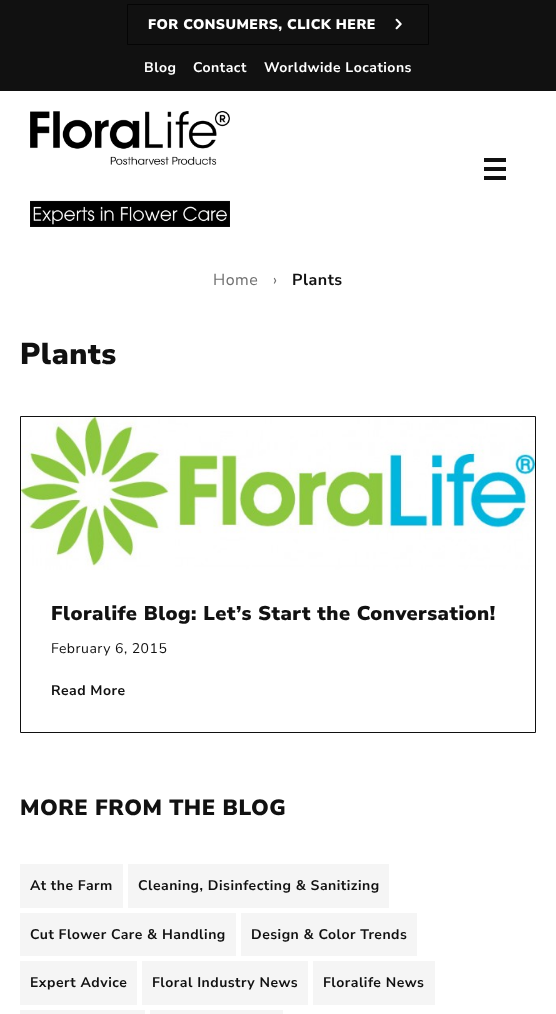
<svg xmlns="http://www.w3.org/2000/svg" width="556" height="1014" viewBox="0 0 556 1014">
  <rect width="100%" height="100%" fill="#fff"/>
  <path d="M0 0h556v91H0z" fill="#111"/>
  <path d="M127.5 4.5h301v40H127.5z" fill="none" stroke="#050505"/>
  <image x="395" y="18" width="7" height="12" href="img/1.png"/>
  <image x="30" y="111" width="200" height="116" href="img/2.png"/>
  <path d="M484 158h22v4H484z" fill="#111"/>
  <path d="M484 167h22v4H484z" fill="#111"/>
  <path d="M484 176h22v4H484z" fill="#111"/>
  <path d="M20.5 416.5h515v316H20.5z" fill="none" stroke="#111"/>
  <image x="21" y="417" width="514" height="153" href="img/3.png"/>
  <path d="M20 864h103v44H20z" fill="#f5f5f5"/>
  <path d="M128 864h261v44H128z" fill="#f5f5f5"/>
  <path d="M20 913h216v43H20z" fill="#f5f5f5"/>
  <path d="M241 913h176v43H241z" fill="#f5f5f5"/>
  <path d="M20 961h117v44H20z" fill="#f5f5f5"/>
  <path d="M142 961h166v44H142z" fill="#f5f5f5"/>
  <path d="M313 961h122v44H313z" fill="#f5f5f5"/>
  <path d="M20 1010h125v4H20z" fill="#f5f5f5"/>
  <path d="M150 1010h133v4H150z" fill="#f5f5f5"/>
  <text x="148" y="29" font-family="Nunito Sans" font-size="14" font-weight="900" letter-spacing="0.5" fill="#fff">FOR CONSUMERS, CLICK HERE</text>
  <g font-family="Nunito Sans" font-size="14" font-weight="bold" letter-spacing="0.5" fill="#fff">
    <text x="144" y="72">Blog</text>
    <text x="193" y="72">Contact</text>
    <text x="264" y="72">Worldwide Locations</text>
  </g>
  <g font-family="Nunito Sans" font-size="16" letter-spacing="0.5" fill="#707070">
    <text x="213" y="285">Home</text>
    <text x="273" y="285">›</text>
  </g>
  <text x="292" y="285" font-family="Nunito Sans" font-size="16" font-weight="bold" letter-spacing="0.5" fill="#111">Plants</text>
  <text x="20" y="364" font-family="Nunito Sans" font-size="30" font-weight="900" letter-spacing="0.5" fill="#111">Plants</text>
  <text x="51" y="620" font-family="Nunito Sans" font-size="20" font-weight="900" letter-spacing="0.5" fill="#111">Floralife Blog: Let’s Start the Conversation!</text>
  <text x="51" y="653" font-family="Nunito Sans" font-size="14" letter-spacing="0.5" fill="#111">February 6, 2015</text>
  <text x="51" y="695" font-family="Nunito Sans" font-size="14" font-weight="bold" letter-spacing="0.5" fill="#111">Read More</text>
  <text x="20" y="815" font-family="Nunito Sans" font-size="22" font-weight="900" letter-spacing="0.5" fill="#111">MORE FROM THE BLOG</text>
  <g font-family="Nunito Sans" font-size="14" font-weight="bold" letter-spacing="0.5" fill="#111">
    <text x="30" y="890">At the Farm</text>
    <text x="138" y="890">Cleaning, Disinfecting &amp; Sanitizing</text>
    <text x="30" y="939">Cut Flower Care &amp; Handling</text>
    <text x="251" y="939">Design &amp; Color Trends</text>
    <text x="30" y="987">Expert Advice</text>
    <text x="152" y="987">Floral Industry News</text>
    <text x="323" y="987">Floralife News</text>
  </g>
</svg>
